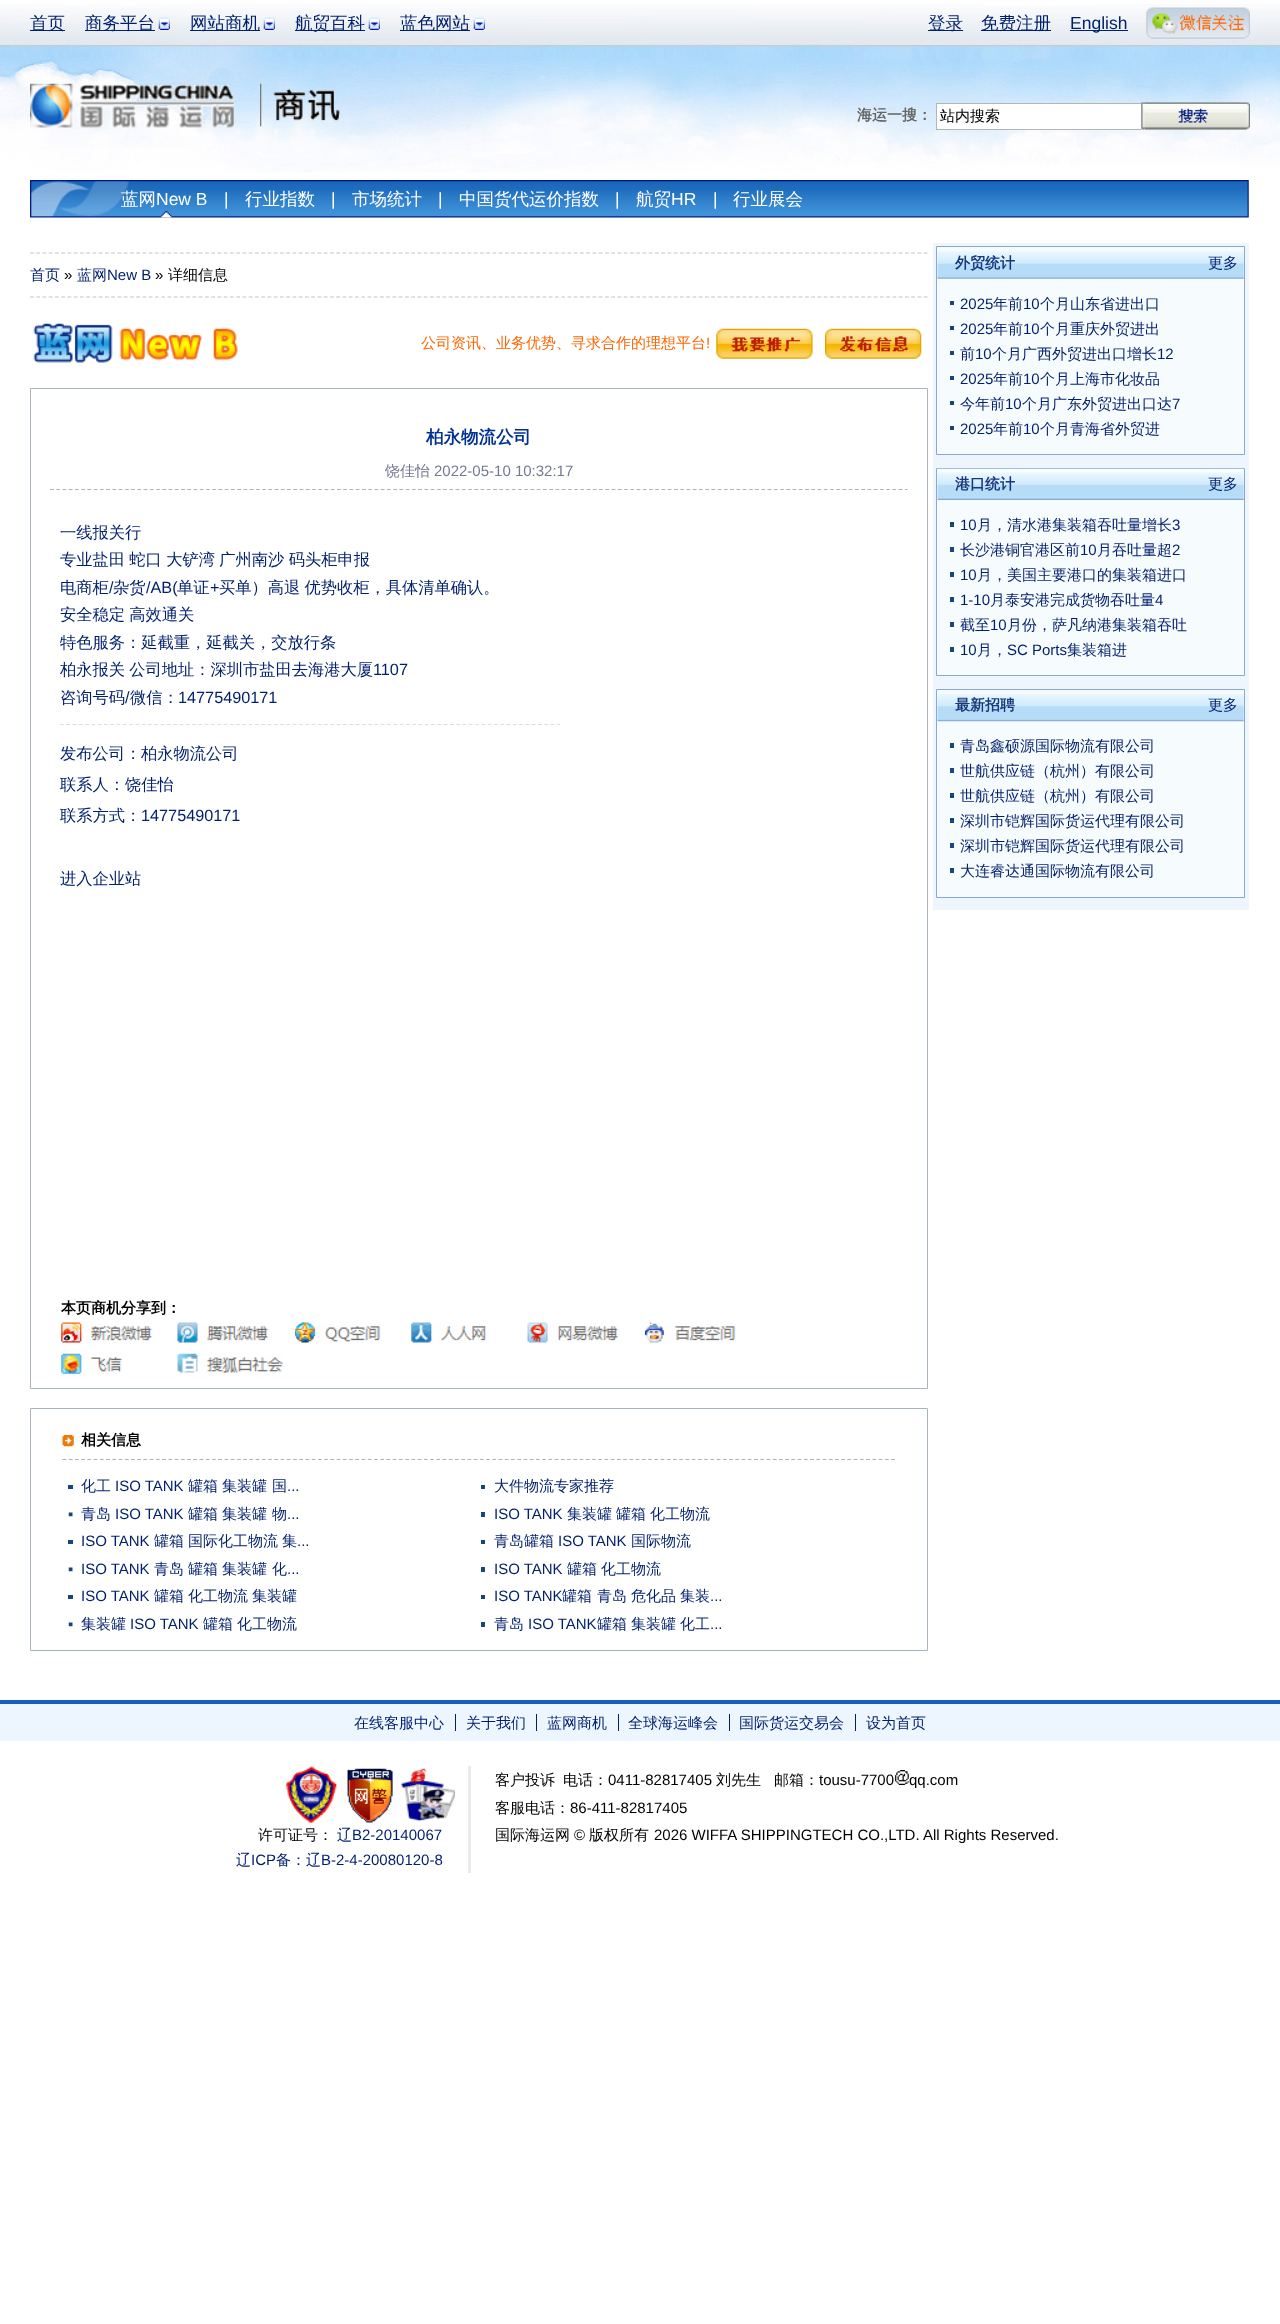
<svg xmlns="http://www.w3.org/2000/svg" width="1280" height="2324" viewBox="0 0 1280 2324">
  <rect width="100%" height="100%" fill="#fff"/>
  <image x="0" y="4" width="1280" height="169" href="img/1.png"/>
  <path d="M30 30h35v1H30z" fill="#001f6c"/>
  <image x="158" y="17" width="12" height="13" href="img/2.png"/>
  <path d="M85 30h70v1H85z" fill="#001f6c"/>
  <image x="263" y="17" width="12" height="13" href="img/3.png"/>
  <path d="M190 30h70v1H190z" fill="#001f6c"/>
  <image x="368" y="17" width="12" height="13" href="img/4.png"/>
  <path d="M295 30h70v1H295z" fill="#001f6c"/>
  <image x="473" y="17" width="12" height="13" href="img/5.png"/>
  <path d="M400 30h70v1H400z" fill="#001f6c"/>
  <path d="M928 30h35v1H928z" fill="#001f6c"/>
  <path d="M981 30h70v1H981z" fill="#001f6c"/>
  <path d="M1070 30h58v1H1070z" fill="#001f6c"/>
  <image x="1146" y="7" width="104" height="32" href="img/6.png"/>
  <image x="30" y="83" width="204" height="45" href="img/7.png"/>
  <image x="260" y="83" width="80" height="44" href="img/8.png"/>
  <path d="M937 104h204v25H937z" fill="#fff"/>
  <path d="M936 103h205v1H936z" fill="#b3b7b1"/>
  <path d="M936 129h205v1H936z" fill="#b3b7b1"/>
  <path d="M936 103h1v27H936z" fill="#b3b7b1"/>
  <image x="1141" y="102" width="109" height="28" href="img/9.png"/>
  <image x="30" y="180" width="1219" height="38" href="img/10.png"/>
  <image x="161" y="211" width="11" height="7" href="img/11.png"/>
  <path d="M30 253H927.5" fill="none" stroke="#c3c3c3" stroke-width="1.2" stroke-dasharray="3.75 2.5"/>
  <path d="M30 297H927.5" fill="none" stroke="#c3c3c3" stroke-width="1.2" stroke-dasharray="3.75 2.5"/>
  <image x="33" y="323" width="205" height="40" href="img/12.png"/>
  <image x="716" y="328" width="97" height="31" href="img/13.png"/>
  <image x="825" y="328" width="97" height="31" href="img/14.png"/>
  <path d="M30.5 388.5h897v1000H30.5z" fill="none" stroke="#a8b5bd"/>
  <path d="M50 489.5H907.5" fill="none" stroke="#a8b5bd" stroke-width="1.2" stroke-dasharray="3.75 2.49"/>
  <path d="M60 724.5H560" fill="none" stroke="#ddd" stroke-width="1.2" stroke-dasharray="3.75 2.54"/>
  <image x="61" y="1322" width="92" height="21" href="img/15.png"/>
  <image x="177" y="1322" width="92" height="21" href="img/16.png"/>
  <image x="295" y="1322" width="86" height="21" href="img/17.png"/>
  <image x="411" y="1322" width="76" height="21" href="img/18.png"/>
  <image x="527" y="1322" width="92" height="21" href="img/19.png"/>
  <image x="645" y="1322" width="91" height="21" href="img/20.png"/>
  <image x="61" y="1353" width="62" height="21" href="img/21.png"/>
  <image x="177" y="1353" width="107" height="20" href="img/22.png"/>
  <path d="M30.5 1408.5h897v242H30.5z" fill="none" stroke="#a8b5bd"/>
  <image x="62" y="1435" width="12" height="12" href="img/23.png"/>
  <path d="M62.5 1459.5H895" fill="none" stroke="#a8b5bd" stroke-width="1.2" stroke-dasharray="3.75 2.48"/>
  <path d="M68 1485h5v4H68z" fill="#18457a"/>
  <path d="M481 1485h4v4H481z" fill="#17457a"/>
  <image x="68" y="1512" width="5" height="5" href="img/24.png"/>
  <path d="M481 1512h4v5H481z" fill="#18457b"/>
  <path d="M68 1540h5v4H68z" fill="#18457a"/>
  <path d="M481 1540h4v4H481z" fill="#17457a"/>
  <image x="68" y="1567" width="5" height="5" href="img/24.png"/>
  <path d="M481 1567h4v5H481z" fill="#18457b"/>
  <path d="M68 1595h5v4H68z" fill="#18457a"/>
  <path d="M481 1595h4v4H481z" fill="#17457a"/>
  <image x="68" y="1622" width="5" height="5" href="img/24.png"/>
  <path d="M481 1622h4v5H481z" fill="#18457b"/>
  <path d="M933 243h316v667H933z" fill="#eff5fc"/>
  <path d="M936.5 246.5h308v208H936.5z" fill="#f6fbfd" stroke="#86aad5"/>
  <image x="937" y="251" width="307" height="28" href="img/25.png"/>
  <path d="M950 301h4v4H950z" fill="#17457b"/>
  <path d="M950 326h4v4H950z" fill="#17457b"/>
  <path d="M950 351h4v4H950z" fill="#17457b"/>
  <path d="M950 376h4v4H950z" fill="#17457b"/>
  <path d="M950 401h4v4H950z" fill="#17457b"/>
  <path d="M950 426h4v4H950z" fill="#17457b"/>
  <path d="M936.5 468.5h308v207H936.5z" fill="#f6fbfd" stroke="#86aad5"/>
  <image x="937" y="468" width="307" height="32" href="img/26.png"/>
  <path d="M950 522h4v5H950z" fill="#18457b"/>
  <path d="M950 547h4v5H950z" fill="#18457b"/>
  <path d="M950 572h4v5H950z" fill="#18457b"/>
  <path d="M950 597h4v5H950z" fill="#18457b"/>
  <path d="M950 622h4v5H950z" fill="#18457b"/>
  <path d="M950 647h4v5H950z" fill="#18457b"/>
  <path d="M936.5 689.5h308v208H936.5z" fill="#f6fbfd" stroke="#86aad5"/>
  <image x="937" y="694" width="307" height="28" href="img/27.png"/>
  <path d="M950 743h4v5H950z" fill="#18457b"/>
  <path d="M950 768h4v5H950z" fill="#18457b"/>
  <path d="M950 793h4v5H950z" fill="#18457b"/>
  <path d="M950 818h4v5H950z" fill="#18457b"/>
  <path d="M950 843h4v5H950z" fill="#18457b"/>
  <path d="M950 868h4v5H950z" fill="#18457b"/>
  <path d="M0 1700h1280v4H0z" fill="#165fbb"/>
  <path d="M0 1704h1280v37H0z" fill="#edf5ff"/>
  <path d="M455 1714h1v17H455z" fill="#001f6c"/>
  <path d="M536 1714h1v17H536z" fill="#001f6c"/>
  <path d="M618 1714h1v17H618z" fill="#001f6c"/>
  <path d="M729 1714h1v17H729z" fill="#001f6c"/>
  <path d="M855 1714h1v17H855z" fill="#001f6c"/>
  <path d="M468 1766h3v107H468z" fill="#ebebeb"/>
  <image x="286" y="1766" width="51" height="57" href="img/28.png"/>
  <image x="347" y="1768" width="46" height="55" href="img/29.png"/>
  <image x="401" y="1768" width="54" height="54" href="img/30.png"/>
  <image x="894" y="1770" width="15" height="15" href="img/31.png"/>
  <g font-family="WenQuanYi Zen Hei" font-size="17.5" font-weight="500" fill="#001f6c">
    <text x="30" y="29">首页</text>
    <text x="85" y="29">商务平台</text>
    <text x="190" y="29">网站商机</text>
    <text x="295" y="29">航贸百科</text>
    <text x="400" y="29">蓝色网站</text>
    <text x="928" y="29">登录</text>
    <text x="981" y="29">免费注册</text>
  </g>
  <text x="1070" y="29" font-family="Liberation Sans" font-size="17.5" fill="#001f6c">English</text>
  <text x="857" y="120" font-family="WenQuanYi Zen Hei" font-size="15" font-weight="bold" fill="#666">海运一搜：</text>
  <text x="940" y="121" font-family="WenQuanYi Zen Hei" font-size="15" font-weight="500" fill="#000">站内搜索</text>
  <text x="121" y="205" font-family="WenQuanYi Zen Hei" font-size="17.5" font-weight="500" fill="#fff">蓝网</text>
  <g font-family="Liberation Sans" font-size="17.5" fill="#fff">
    <text x="156" y="205">New B</text>
    <text x="224" y="205">|</text>
  </g>
  <text x="245" y="205" font-family="WenQuanYi Zen Hei" font-size="17.5" font-weight="500" fill="#fff">行业指数</text>
  <text x="331" y="205" font-family="Liberation Sans" font-size="17.5" fill="#fff">|</text>
  <text x="352" y="205" font-family="WenQuanYi Zen Hei" font-size="17.5" font-weight="500" fill="#fff">市场统计</text>
  <text x="438" y="205" font-family="Liberation Sans" font-size="17.5" fill="#fff">|</text>
  <text x="459" y="205" font-family="WenQuanYi Zen Hei" font-size="17.5" font-weight="500" fill="#fff">中国货代运价指数</text>
  <text x="615" y="205" font-family="Liberation Sans" font-size="17.5" fill="#fff">|</text>
  <text x="636" y="205" font-family="WenQuanYi Zen Hei" font-size="17.5" font-weight="500" fill="#fff">航贸</text>
  <g font-family="Liberation Sans" font-size="17.5" fill="#fff">
    <text x="671" y="205">HR</text>
    <text x="713" y="205">|</text>
  </g>
  <text x="733" y="205" font-family="WenQuanYi Zen Hei" font-size="17.5" font-weight="500" fill="#fff">行业展会</text>
  <text x="30" y="280" font-family="WenQuanYi Zen Hei" font-size="15" font-weight="500" fill="#001f6c">首页</text>
  <text x="64" y="280" font-family="Liberation Sans" font-size="15" fill="#000">»</text>
  <text x="77" y="280" font-family="WenQuanYi Zen Hei" font-size="15" font-weight="500" fill="#001f6c">蓝网</text>
  <text x="107" y="280" font-family="Liberation Sans" font-size="15" fill="#001f6c">New B</text>
  <text x="155" y="280" font-family="Liberation Sans" font-size="15" fill="#000">»</text>
  <text x="168" y="280" font-family="WenQuanYi Zen Hei" font-size="15" font-weight="500" fill="#000">详细信息</text>
  <text x="421" y="348" font-family="WenQuanYi Zen Hei" font-size="15" font-weight="500" fill="#f60">公司资讯、业务优势、寻求合作的理想平台</text>
  <text x="706" y="348" font-family="Liberation Sans" font-size="15" fill="#f60">!</text>
  <text x="426" y="443" font-family="WenQuanYi Zen Hei" font-size="17.5" font-weight="bold" fill="#003092">柏永物流公司</text>
  <text x="385" y="476" font-family="WenQuanYi Zen Hei" font-size="15" font-weight="500" fill="#717b90">饶佳怡</text>
  <text x="434" y="476" font-family="Liberation Sans" font-size="15" fill="#717b90">2022-05-10 10:32:17</text>
  <g font-family="WenQuanYi Zen Hei" font-size="16.25" font-weight="500" fill="#001f6c">
    <text x="60" y="538">一线报关行</text>
    <text x="60" y="565" word-spacing="-0.5">专业盐田 蛇口 大铲湾 广州南沙 码头柜申报</text>
    <text x="60" y="593">电商柜</text>
  </g>
  <text x="109" y="593" font-family="Liberation Sans" font-size="16.25" fill="#001f6c">/</text>
  <text x="113" y="593" font-family="WenQuanYi Zen Hei" font-size="16.25" font-weight="500" fill="#001f6c">杂货</text>
  <text x="146" y="593" font-family="Liberation Sans" font-size="16.25" fill="#001f6c">/AB(</text>
  <text x="177" y="593" font-family="WenQuanYi Zen Hei" font-size="16.25" font-weight="500" fill="#001f6c">单证</text>
  <text x="210" y="593" font-family="Liberation Sans" font-size="16.25" fill="#001f6c">+</text>
  <g font-family="WenQuanYi Zen Hei" font-size="16.25" font-weight="500" fill="#001f6c">
    <text x="219" y="593" word-spacing="-0.5">买单）高退 优势收柜，具体清单确认。</text>
    <text x="60" y="620" word-spacing="-0.5">安全稳定 高效通关</text>
    <text x="60" y="648">特色服务：延截重，延截关，交放行条</text>
    <text x="60" y="675" word-spacing="-0.5">柏永报关 公司地址：深圳市盐田去海港大厦</text>
  </g>
  <text x="373" y="675" font-family="Liberation Sans" font-size="16.25" fill="#001f6c">1107</text>
  <text x="60" y="703" font-family="WenQuanYi Zen Hei" font-size="16.25" font-weight="500" fill="#001f6c">咨询号码</text>
  <text x="125" y="703" font-family="Liberation Sans" font-size="16.25" fill="#001f6c">/</text>
  <text x="130" y="703" font-family="WenQuanYi Zen Hei" font-size="16.25" font-weight="500" fill="#001f6c">微信：</text>
  <text x="178" y="703" font-family="Liberation Sans" font-size="16.25" fill="#001f6c">14775490171</text>
  <g font-family="WenQuanYi Zen Hei" font-size="16.25" font-weight="500" fill="#001f6c">
    <text x="60" y="759">发布公司：</text>
    <text x="141" y="759">柏永物流公司</text>
    <text x="60" y="790">联系人：饶佳怡</text>
    <text x="60" y="821">联系方式：</text>
  </g>
  <text x="141" y="821" font-family="Liberation Sans" font-size="16.25" fill="#001f6c">14775490171</text>
  <text x="60" y="884" font-family="WenQuanYi Zen Hei" font-size="16.25" font-weight="500" fill="#001f6c">进入企业站</text>
  <g font-family="WenQuanYi Zen Hei" font-size="15" font-weight="bold" fill="#000">
    <text x="61" y="1313">本页商机分享到：</text>
    <text x="81" y="1445">相关信息</text>
  </g>
  <text x="81" y="1491" font-family="WenQuanYi Zen Hei" font-size="15" font-weight="500" fill="#001f6c">化工</text>
  <text x="115" y="1491" font-family="Liberation Sans" font-size="15" fill="#001f6c">ISO TANK</text>
  <g font-family="WenQuanYi Zen Hei" font-size="15" font-weight="500" fill="#001f6c">
    <text x="188" y="1491">罐箱</text>
    <text x="222" y="1491">集装罐</text>
    <text x="272" y="1491">国</text>
  </g>
  <text x="287" y="1491" font-family="Liberation Sans" font-size="15" fill="#001f6c">...</text>
  <g font-family="WenQuanYi Zen Hei" font-size="15" font-weight="500" fill="#001f6c">
    <text x="494" y="1491">大件物流专家推荐</text>
    <text x="81" y="1519">青岛</text>
  </g>
  <text x="115" y="1519" font-family="Liberation Sans" font-size="15" fill="#001f6c">ISO TANK</text>
  <g font-family="WenQuanYi Zen Hei" font-size="15" font-weight="500" fill="#001f6c">
    <text x="188" y="1519">罐箱</text>
    <text x="222" y="1519">集装罐</text>
    <text x="272" y="1519">物</text>
  </g>
  <g font-family="Liberation Sans" font-size="15" fill="#001f6c">
    <text x="287" y="1519">...</text>
    <text x="494" y="1519">ISO TANK</text>
  </g>
  <g font-family="WenQuanYi Zen Hei" font-size="15" font-weight="500" fill="#001f6c">
    <text x="567" y="1519">集装罐</text>
    <text x="616" y="1519">罐箱</text>
    <text x="650" y="1519">化工物流</text>
  </g>
  <text x="81" y="1546" font-family="Liberation Sans" font-size="15" fill="#001f6c">ISO TANK</text>
  <g font-family="WenQuanYi Zen Hei" font-size="15" font-weight="500" fill="#001f6c">
    <text x="154" y="1546">罐箱</text>
    <text x="188" y="1546">国际化工物流</text>
    <text x="282" y="1546">集</text>
  </g>
  <text x="297" y="1546" font-family="Liberation Sans" font-size="15" fill="#001f6c">...</text>
  <text x="494" y="1546" font-family="WenQuanYi Zen Hei" font-size="15" font-weight="500" fill="#001f6c">青岛罐箱</text>
  <text x="558" y="1546" font-family="Liberation Sans" font-size="15" fill="#001f6c">ISO TANK</text>
  <text x="631" y="1546" font-family="WenQuanYi Zen Hei" font-size="15" font-weight="500" fill="#001f6c">国际物流</text>
  <text x="81" y="1574" font-family="Liberation Sans" font-size="15" fill="#001f6c">ISO TANK</text>
  <g font-family="WenQuanYi Zen Hei" font-size="15" font-weight="500" fill="#001f6c">
    <text x="154" y="1574">青岛</text>
    <text x="188" y="1574">罐箱</text>
    <text x="222" y="1574">集装罐</text>
    <text x="272" y="1574">化</text>
  </g>
  <g font-family="Liberation Sans" font-size="15" fill="#001f6c">
    <text x="287" y="1574">...</text>
    <text x="494" y="1574">ISO TANK</text>
  </g>
  <g font-family="WenQuanYi Zen Hei" font-size="15" font-weight="500" fill="#001f6c">
    <text x="567" y="1574">罐箱</text>
    <text x="601" y="1574">化工物流</text>
  </g>
  <text x="81" y="1601" font-family="Liberation Sans" font-size="15" fill="#001f6c">ISO TANK</text>
  <g font-family="WenQuanYi Zen Hei" font-size="15" font-weight="500" fill="#001f6c">
    <text x="154" y="1601">罐箱</text>
    <text x="188" y="1601">化工物流</text>
    <text x="252" y="1601">集装罐</text>
  </g>
  <text x="494" y="1601" font-family="Liberation Sans" font-size="15" fill="#001f6c">ISO TANK</text>
  <g font-family="WenQuanYi Zen Hei" font-size="15" font-weight="500" fill="#001f6c">
    <text x="562" y="1601">罐箱</text>
    <text x="597" y="1601">青岛</text>
    <text x="631" y="1601">危化品</text>
    <text x="680" y="1601">集装</text>
  </g>
  <text x="710" y="1601" font-family="Liberation Sans" font-size="15" fill="#001f6c">...</text>
  <text x="81" y="1629" font-family="WenQuanYi Zen Hei" font-size="15" font-weight="500" fill="#001f6c">集装罐</text>
  <text x="130" y="1629" font-family="Liberation Sans" font-size="15" fill="#001f6c">ISO TANK</text>
  <g font-family="WenQuanYi Zen Hei" font-size="15" font-weight="500" fill="#001f6c">
    <text x="203" y="1629">罐箱</text>
    <text x="237" y="1629">化工物流</text>
    <text x="494" y="1629">青岛</text>
  </g>
  <text x="528" y="1629" font-family="Liberation Sans" font-size="15" fill="#001f6c">ISO TANK</text>
  <g font-family="WenQuanYi Zen Hei" font-size="15" font-weight="500" fill="#001f6c">
    <text x="597" y="1629">罐箱</text>
    <text x="631" y="1629">集装罐</text>
    <text x="680" y="1629">化工</text>
  </g>
  <text x="710" y="1629" font-family="Liberation Sans" font-size="15" fill="#001f6c">...</text>
  <text x="955" y="268" font-family="WenQuanYi Zen Hei" font-size="15" font-weight="bold" fill="#16387c">外贸统计</text>
  <text x="1208" y="268" font-family="WenQuanYi Zen Hei" font-size="15" font-weight="500" fill="#001f6c">更多</text>
  <text x="960" y="309" font-family="Liberation Sans" font-size="15" fill="#001f6c">2025</text>
  <text x="993" y="309" font-family="WenQuanYi Zen Hei" font-size="15" font-weight="500" fill="#001f6c">年前</text>
  <text x="1023" y="309" font-family="Liberation Sans" font-size="15" fill="#001f6c">10</text>
  <text x="1040" y="309" font-family="WenQuanYi Zen Hei" font-size="15" font-weight="500" fill="#001f6c">个月山东省进出口</text>
  <text x="960" y="334" font-family="Liberation Sans" font-size="15" fill="#001f6c">2025</text>
  <text x="993" y="334" font-family="WenQuanYi Zen Hei" font-size="15" font-weight="500" fill="#001f6c">年前</text>
  <text x="1023" y="334" font-family="Liberation Sans" font-size="15" fill="#001f6c">10</text>
  <g font-family="WenQuanYi Zen Hei" font-size="15" font-weight="500" fill="#001f6c">
    <text x="1040" y="334">个月重庆外贸进出</text>
    <text x="960" y="359">前</text>
  </g>
  <text x="975" y="359" font-family="Liberation Sans" font-size="15" fill="#001f6c">10</text>
  <text x="992" y="359" font-family="WenQuanYi Zen Hei" font-size="15" font-weight="500" fill="#001f6c">个月广西外贸进出口增长</text>
  <g font-family="Liberation Sans" font-size="15" fill="#001f6c">
    <text x="1157" y="359">12</text>
    <text x="960" y="384">2025</text>
  </g>
  <text x="993" y="384" font-family="WenQuanYi Zen Hei" font-size="15" font-weight="500" fill="#001f6c">年前</text>
  <text x="1023" y="384" font-family="Liberation Sans" font-size="15" fill="#001f6c">10</text>
  <g font-family="WenQuanYi Zen Hei" font-size="15" font-weight="500" fill="#001f6c">
    <text x="1040" y="384">个月上海市化妆品</text>
    <text x="960" y="409">今年前</text>
  </g>
  <text x="1005" y="409" font-family="Liberation Sans" font-size="15" fill="#001f6c">10</text>
  <text x="1022" y="409" font-family="WenQuanYi Zen Hei" font-size="15" font-weight="500" fill="#001f6c">个月广东外贸进出口达</text>
  <g font-family="Liberation Sans" font-size="15" fill="#001f6c">
    <text x="1172" y="409">7</text>
    <text x="960" y="434">2025</text>
  </g>
  <text x="993" y="434" font-family="WenQuanYi Zen Hei" font-size="15" font-weight="500" fill="#001f6c">年前</text>
  <text x="1023" y="434" font-family="Liberation Sans" font-size="15" fill="#001f6c">10</text>
  <text x="1040" y="434" font-family="WenQuanYi Zen Hei" font-size="15" font-weight="500" fill="#001f6c">个月青海省外贸进</text>
  <text x="955" y="489" font-family="WenQuanYi Zen Hei" font-size="15" font-weight="bold" fill="#16387c">港口统计</text>
  <text x="1208" y="489" font-family="WenQuanYi Zen Hei" font-size="15" font-weight="500" fill="#001f6c">更多</text>
  <text x="960" y="530" font-family="Liberation Sans" font-size="15" fill="#001f6c">10</text>
  <text x="977" y="530" font-family="WenQuanYi Zen Hei" font-size="15" font-weight="500" fill="#001f6c">月，清水港集装箱吞吐量增长</text>
  <text x="1172" y="530" font-family="Liberation Sans" font-size="15" fill="#001f6c">3</text>
  <text x="960" y="555" font-family="WenQuanYi Zen Hei" font-size="15" font-weight="500" fill="#001f6c">长沙港铜官港区前</text>
  <text x="1080" y="555" font-family="Liberation Sans" font-size="15" fill="#001f6c">10</text>
  <text x="1097" y="555" font-family="WenQuanYi Zen Hei" font-size="15" font-weight="500" fill="#001f6c">月吞吐量超</text>
  <g font-family="Liberation Sans" font-size="15" fill="#001f6c">
    <text x="1172" y="555">2</text>
    <text x="960" y="580">10</text>
  </g>
  <text x="977" y="580" font-family="WenQuanYi Zen Hei" font-size="15" font-weight="500" fill="#001f6c">月，美国主要港口的集装箱进口</text>
  <text x="960" y="605" font-family="Liberation Sans" font-size="15" fill="#001f6c">1-10</text>
  <text x="990" y="605" font-family="WenQuanYi Zen Hei" font-size="15" font-weight="500" fill="#001f6c">月泰安港完成货物吞吐量</text>
  <text x="1155" y="605" font-family="Liberation Sans" font-size="15" fill="#001f6c">4</text>
  <text x="960" y="630" font-family="WenQuanYi Zen Hei" font-size="15" font-weight="500" fill="#001f6c">截至</text>
  <text x="990" y="630" font-family="Liberation Sans" font-size="15" fill="#001f6c">10</text>
  <text x="1007" y="630" font-family="WenQuanYi Zen Hei" font-size="15" font-weight="500" fill="#001f6c">月份，萨凡纳港集装箱吞吐</text>
  <text x="960" y="655" font-family="Liberation Sans" font-size="15" fill="#001f6c">10</text>
  <text x="977" y="655" font-family="WenQuanYi Zen Hei" font-size="15" font-weight="500" fill="#001f6c">月，</text>
  <text x="1007" y="655" font-family="Liberation Sans" font-size="15" fill="#001f6c">SC Ports</text>
  <text x="1067" y="655" font-family="WenQuanYi Zen Hei" font-size="15" font-weight="500" fill="#001f6c">集装箱进</text>
  <text x="955" y="710" font-family="WenQuanYi Zen Hei" font-size="15" font-weight="bold" fill="#16387c">最新招聘</text>
  <g font-family="WenQuanYi Zen Hei" font-size="15" font-weight="500" fill="#001f6c">
    <text x="1208" y="710">更多</text>
    <text x="960" y="751">青岛鑫硕源国际物流有限公司</text>
    <text x="960" y="776">世航供应链（杭州）有限公司</text>
    <text x="960" y="801">世航供应链（杭州）有限公司</text>
    <text x="960" y="826">深圳市铠辉国际货运代理有限公司</text>
    <text x="960" y="851">深圳市铠辉国际货运代理有限公司</text>
    <text x="960" y="876">大连睿达通国际物流有限公司</text>
    <text x="354" y="1728">在线客服中心</text>
    <text x="466" y="1728">关于我们</text>
    <text x="547" y="1728">蓝网商机</text>
    <text x="628" y="1728">全球海运峰会</text>
    <text x="739" y="1728">国际货运交易会</text>
    <text x="866" y="1728">设为首页</text>
  </g>
  <text x="258" y="1840" font-family="WenQuanYi Zen Hei" font-size="15" font-weight="500" fill="#000">许可证号：</text>
  <text x="337" y="1840" font-family="WenQuanYi Zen Hei" font-size="15" font-weight="500" fill="#001f6c">辽</text>
  <text x="352" y="1840" font-family="Liberation Sans" font-size="15" fill="#001f6c">B2-20140067</text>
  <text x="236" y="1865" font-family="WenQuanYi Zen Hei" font-size="15" font-weight="500" fill="#001f6c">辽</text>
  <text x="251" y="1865" font-family="Liberation Sans" font-size="15" fill="#001f6c">ICP</text>
  <text x="276" y="1865" font-family="WenQuanYi Zen Hei" font-size="15" font-weight="500" fill="#001f6c">备：辽</text>
  <text x="321" y="1865" font-family="Liberation Sans" font-size="15" fill="#001f6c">B-2-4-20080120-8</text>
  <g font-family="WenQuanYi Zen Hei" font-size="15" font-weight="500" fill="#000">
    <text x="495" y="1785">客户投诉</text>
    <text x="563" y="1785">电话：</text>
  </g>
  <text x="608" y="1785" font-family="Liberation Sans" font-size="15" fill="#000">0411-82817405</text>
  <g font-family="WenQuanYi Zen Hei" font-size="15" font-weight="500" fill="#000">
    <text x="716" y="1785">刘先生</text>
    <text x="774" y="1785">邮箱：</text>
  </g>
  <g font-family="Liberation Sans" font-size="15" fill="#000">
    <text x="819" y="1785">tousu-7700</text>
    <text x="909" y="1785">qq.com</text>
  </g>
  <text x="495" y="1813" font-family="WenQuanYi Zen Hei" font-size="15" font-weight="500" fill="#000">客服电话：</text>
  <text x="570" y="1813" font-family="Liberation Sans" font-size="15" fill="#000">86-411-82817405</text>
  <text x="495" y="1840" font-family="WenQuanYi Zen Hei" font-size="15" font-weight="500" fill="#000">国际海运网</text>
  <text x="574" y="1840" font-family="Liberation Sans" font-size="15" fill="#000">©</text>
  <text x="589" y="1840" font-family="WenQuanYi Zen Hei" font-size="15" font-weight="500" fill="#000">版权所有</text>
  <text x="654" y="1840" font-family="Liberation Sans" font-size="15" fill="#000">2026 WIFFA SHIPPINGTECH CO.,LTD. All Rights Reserved.</text>
</svg>
